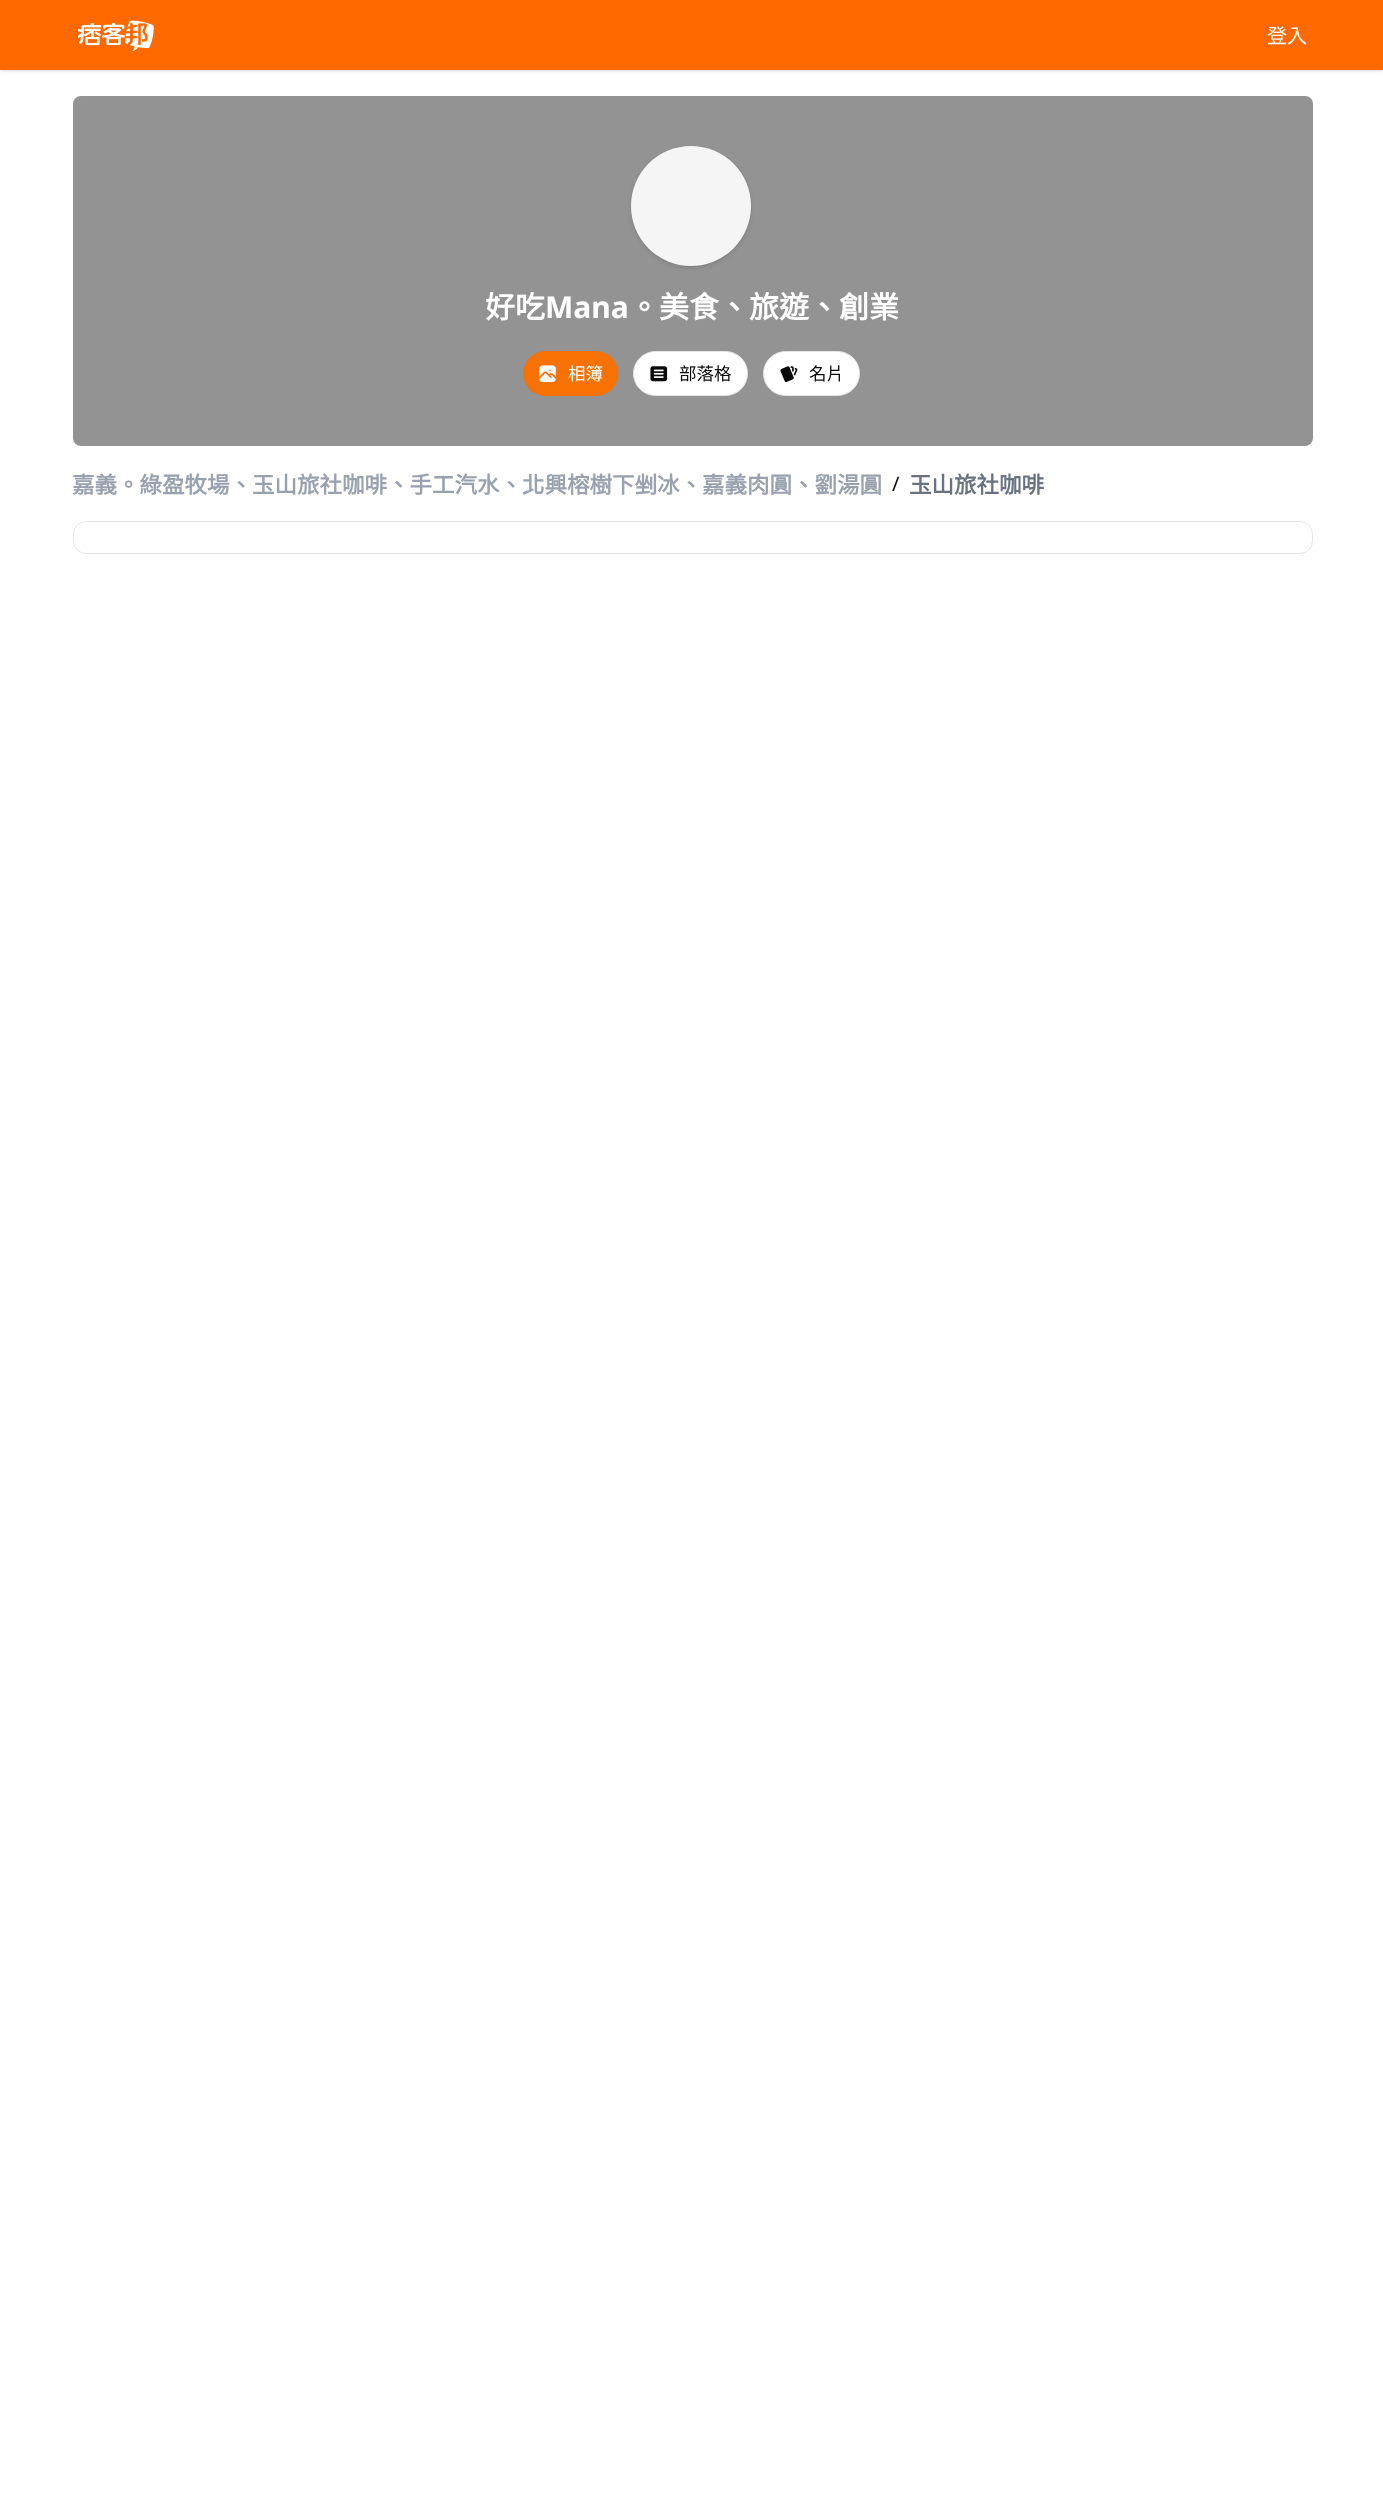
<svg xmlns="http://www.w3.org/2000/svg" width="1383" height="2515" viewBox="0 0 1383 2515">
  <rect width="100%" height="100%" fill="#fff"/>
  <path d="M1 3h1382v67H1z" fill="#0000001a" filter="blur(1px)"/>
  <path d="M0 1h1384v70H0z" fill="#0000001a" filter="blur(2px)"/>
  <path d="M0 0h1383v70H0z" fill="#ff6900"/>
  <image x="78" y="20" width="76" height="31" href="img/1.png"/>
  <rect x="73" y="96" width="1240" height="350" rx="8" fill="#f5f5f5"/>
  <rect x="73" y="96" width="1240" height="350" rx="8" fill="#00000066"/>
  <rect x="633" y="149" width="117" height="117" rx="58.5" fill="#0000001a" filter="blur(1px)"/>
  <rect x="631" y="148" width="120" height="120" rx="60" fill="#0000001a" filter="blur(2px)"/>
  <circle cx="691" cy="206" r="60" fill="#f5f5f5"/>
  <rect x="523" y="351" width="95" height="45" rx="22.5" fill="#f87103"/>
  <image x="539" y="365" width="17" height="18" href="img/2.png"/>
  <rect x="633.5" y="351.5" width="114" height="44" rx="22" fill="#fff" stroke="#e5e5e5"/>
  <image x="650" y="366" width="18" height="16" href="img/3.png"/>
  <rect x="763.5" y="351.5" width="96" height="44" rx="22" fill="#fff" stroke="#e5e5e5"/>
  <image x="780" y="366" width="18" height="17" href="img/4.png"/>
  <rect x="73.5" y="521.5" width="1239" height="32" rx="12.5" fill="none" stroke="#e5e5e5"/>
  <text x="1267" y="43" font-family="Noto Sans CJK TC" font-size="20" fill="#fff">登入</text>
  <text x="485" y="318" font-family="Noto Sans CJK TC" font-size="30" font-weight="bold" fill="#fff">好吃</text>
  <text x="545" y="318" font-family="Noto Sans" font-size="30" font-weight="bold" fill="#fff">Mana</text>
  <text x="629" y="318" font-family="Noto Sans CJK TC" font-size="30" font-weight="bold" fill="#fff">。美食、旅遊、創業</text>
  <text x="568" y="380" font-family="Noto Sans CJK TC" font-size="17.5" fill="#fff">相簿</text>
  <g font-family="Noto Sans CJK TC" font-size="17.5" fill="#0a0a0a">
    <text x="679" y="380">部落格</text>
    <text x="809" y="380">名片</text>
  </g>
  <text x="72" y="493" font-family="Noto Sans CJK TC" font-size="22.5" font-weight="bold" fill="#99a1af">嘉義。綠盈牧場、玉山旅社咖啡、手工汽水、北興榕樹下剉冰、嘉義肉圓、劉湯圓</text>
  <text x="892" y="491" font-family="Noto Sans" font-size="20" fill="#0a0a0a">/</text>
  <text x="909" y="493" font-family="Noto Sans CJK TC" font-size="22.5" font-weight="bold" fill="#6a7282">玉山旅社咖啡</text>
</svg>
